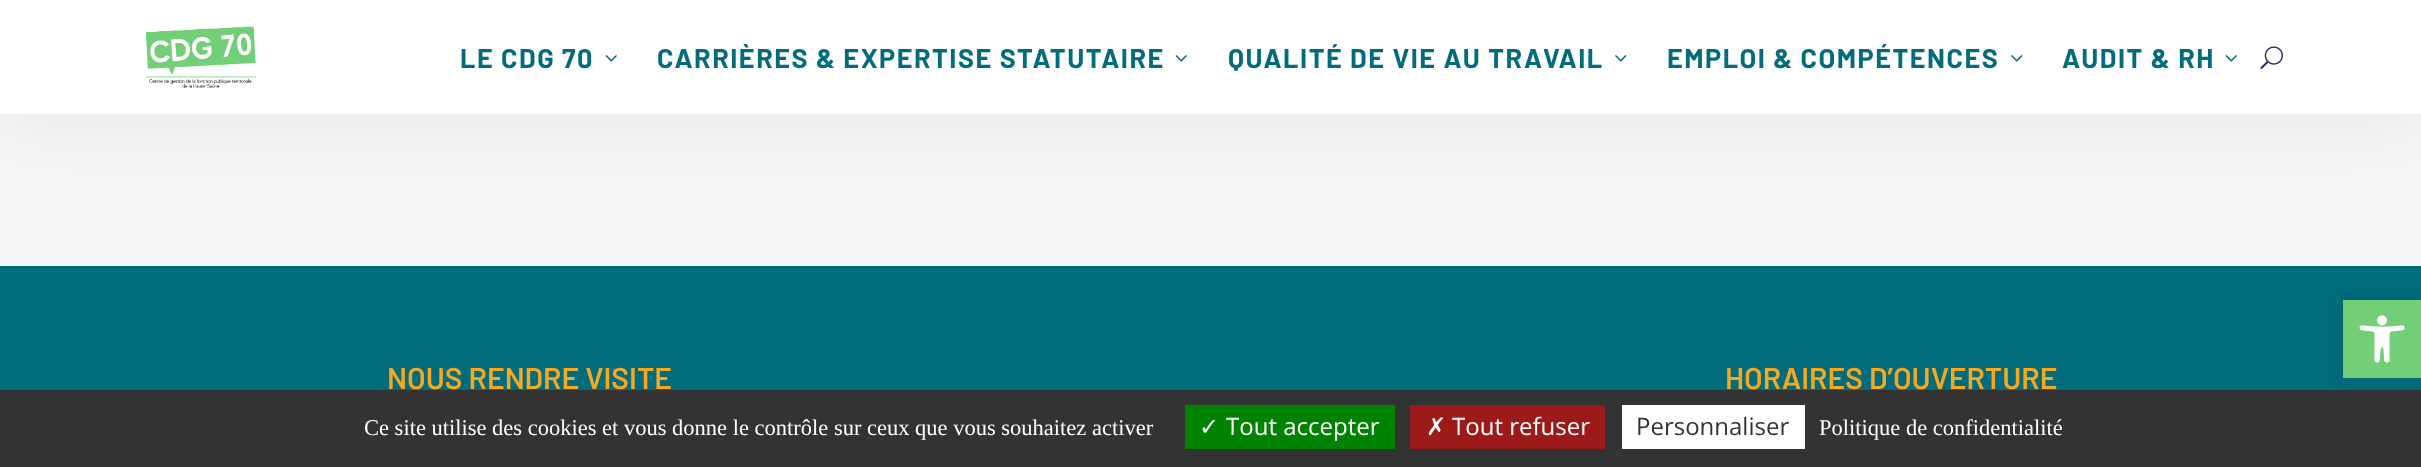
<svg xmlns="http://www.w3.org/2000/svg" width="2421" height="467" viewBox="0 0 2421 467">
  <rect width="100%" height="100%" fill="#f7f7f7"/>
  <path d="M0 3h2421v114H0z" fill="#00000014" filter="blur(37.5px)"/>
  <path d="M0 0h2421v114H0z" fill="#fff"/>
  <image x="145" y="26" width="112" height="62" href="img/1.png"/>
  <image x="605" y="55" width="12" height="7" href="img/2.png"/>
  <image x="1175" y="55" width="12" height="7" href="img/2.png"/>
  <image x="1615" y="55" width="12" height="7" href="img/3.png"/>
  <image x="2011" y="55" width="12" height="7" href="img/3.png"/>
  <image x="2225" y="55" width="12" height="7" href="img/2.png"/>
  <image x="2260" y="46" width="23" height="23" href="img/4.png"/>
  <path d="M0 266h2421v124H0z" fill="#036c7c"/>
  <path d="M2343 300h78v78H2343z" fill="#0000001a" filter="blur(7.5px)"/>
  <path d="M2343 300h78v78H2343z" fill="#72cf78"/>
  <image x="2359" y="315" width="46" height="48" href="img/5.png"/>
  <path d="M0 390h2421v77H0z" fill="#333"/>
  <path d="M1185 405h210v44H1185z" fill="#008300"/>
  <path d="M1410 405h195v44H1410z" fill="#9c1a1a"/>
  <path d="M1622 405h183v44H1622z" fill="#fff"/>
  <g font-family="Barlow" font-size="27" font-weight="bold" letter-spacing="1.5" fill="#036c7c">
    <text x="460" y="68">LE CDG 70</text>
    <text x="657" y="68">CARRIÈRES &amp; EXPERTISE STATUTAIRE</text>
    <text x="1228" y="68">QUALITÉ DE VIE AU TRAVAIL</text>
    <text x="1667" y="68">EMPLOI &amp; COMPÉTENCES</text>
    <text x="2062" y="68">AUDIT &amp; RH</text>
  </g>
  <g font-family="Barlow" font-size="30" font-weight="600" fill="#f7a720">
    <text x="387" y="389">NOUS RENDRE VISITE</text>
    <text x="1725" y="389">HORAIRES D’OUVERTURE</text>
  </g>
  <text x="364" y="435" font-family="Liberation Serif" font-size="22.5" fill="#fff">Ce site utilise des cookies et vous donne le contrôle sur ceux que vous souhaitez activer</text>
  <text x="1199" y="435" font-family="DejaVu Sans" font-size="24" fill="#fff">✓</text>
  <text x="1226" y="435" font-family="Open Sans" font-size="24" fill="#fff">Tout accepter</text>
  <text x="1426" y="435" font-family="DejaVu Sans" font-size="24" fill="#fff">✗</text>
  <text x="1452" y="435" font-family="Open Sans" font-size="24" fill="#fff">Tout refuser</text>
  <text x="1636" y="435" font-family="Open Sans" font-size="24" fill="#333">Personnaliser</text>
  <text x="1819" y="435" font-family="Liberation Serif" font-size="22.5" fill="#fff">Politique de confidentialité</text>
</svg>
